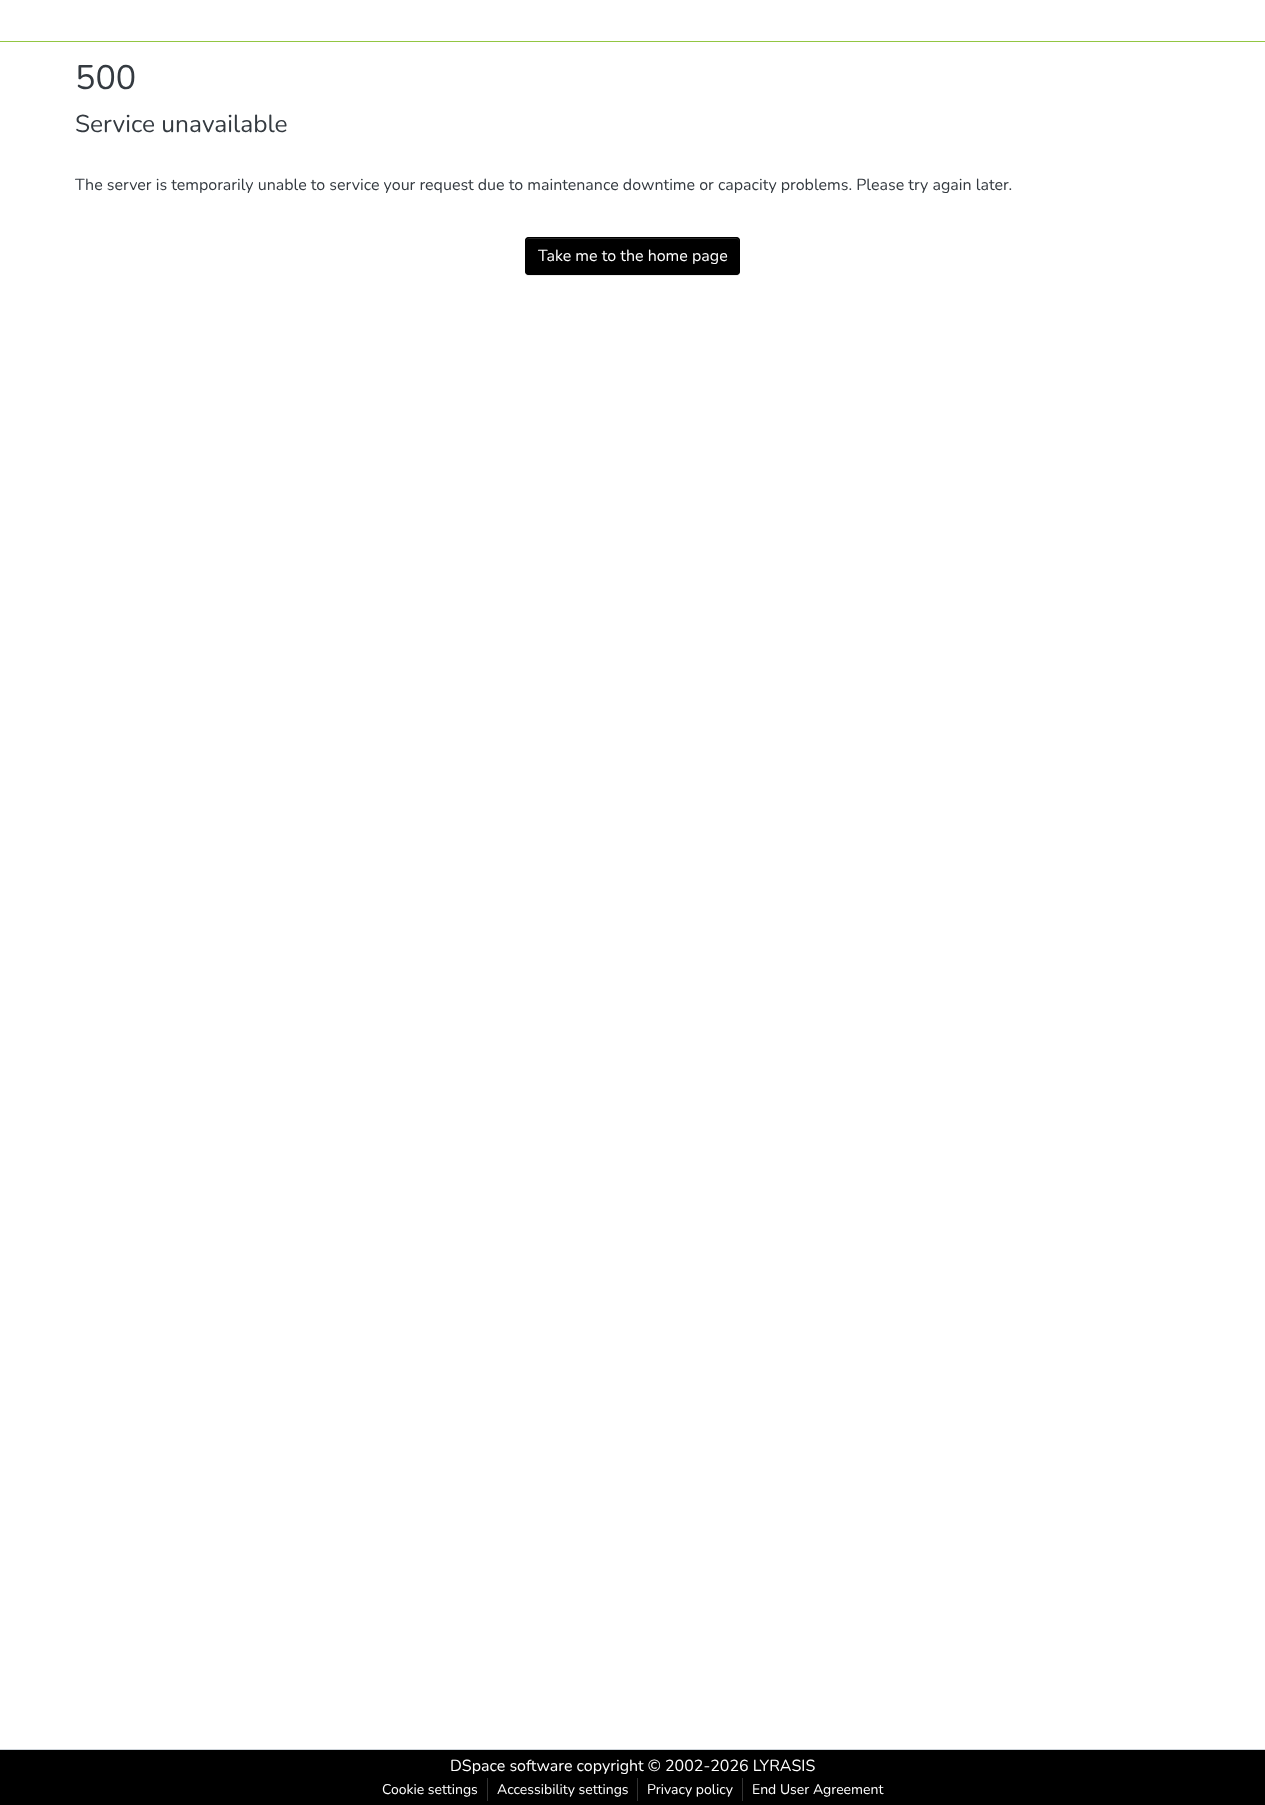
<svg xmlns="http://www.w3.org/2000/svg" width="1265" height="1805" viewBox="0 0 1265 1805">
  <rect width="100%" height="100%" fill="#fff"/>
  <path d="M0 41h1265v1H0z" fill="#92c642"/>
  <rect x="525" y="238" width="215" height="38" rx="4" fill="#00000012" filter="blur(0.5px)"/>
  <rect x="525" y="237" width="215" height="38" rx="4" fill="#000"/>
  <path d="M529 239H736C738 239 739 240 739 242V241C739 239 738 238 736 238H529C527 238 526 239 526 241V242C526 240 527 239 529 239Z" fill="#262626"/>
  <rect x="525.5" y="237.5" width="214" height="37" rx="3.5" fill="none" stroke="#000"/>
  <path d="M0 1750h1265v55H0z" fill="#000"/>
  <path d="M0 1749h1265v1H0z" fill="#ced4da"/>
  <path d="M487 1778h1v23H487z" fill="#333"/>
  <path d="M637 1778h1v23H637z" fill="#333"/>
  <path d="M742 1778h1v23H742z" fill="#333"/>
  <text x="75" y="89" font-family="Nunito" font-size="34" fill="#343a40">500</text>
  <text x="75" y="132" font-family="Nunito" font-size="24.5" fill="#343a40">Service unavailable</text>
  <text x="75" y="190" font-family="Nunito" font-size="16" fill="#343a40">The server is temporarily unable to service your request due to maintenance downtime or capacity problems. Please try again later.</text>
  <g font-family="Nunito" font-size="16" fill="#fff">
    <text x="538" y="261">Take me to the home page</text>
    <text x="450" y="1771">DSpace software copyright © 2002-2026 LYRASIS</text>
  </g>
  <g font-family="Nunito" font-size="14" fill="#fff">
    <text x="382" y="1794">Cookie settings</text>
    <text x="497" y="1794">Accessibility settings</text>
    <text x="647" y="1794">Privacy policy</text>
    <text x="752" y="1794">End User Agreement</text>
  </g>
</svg>
